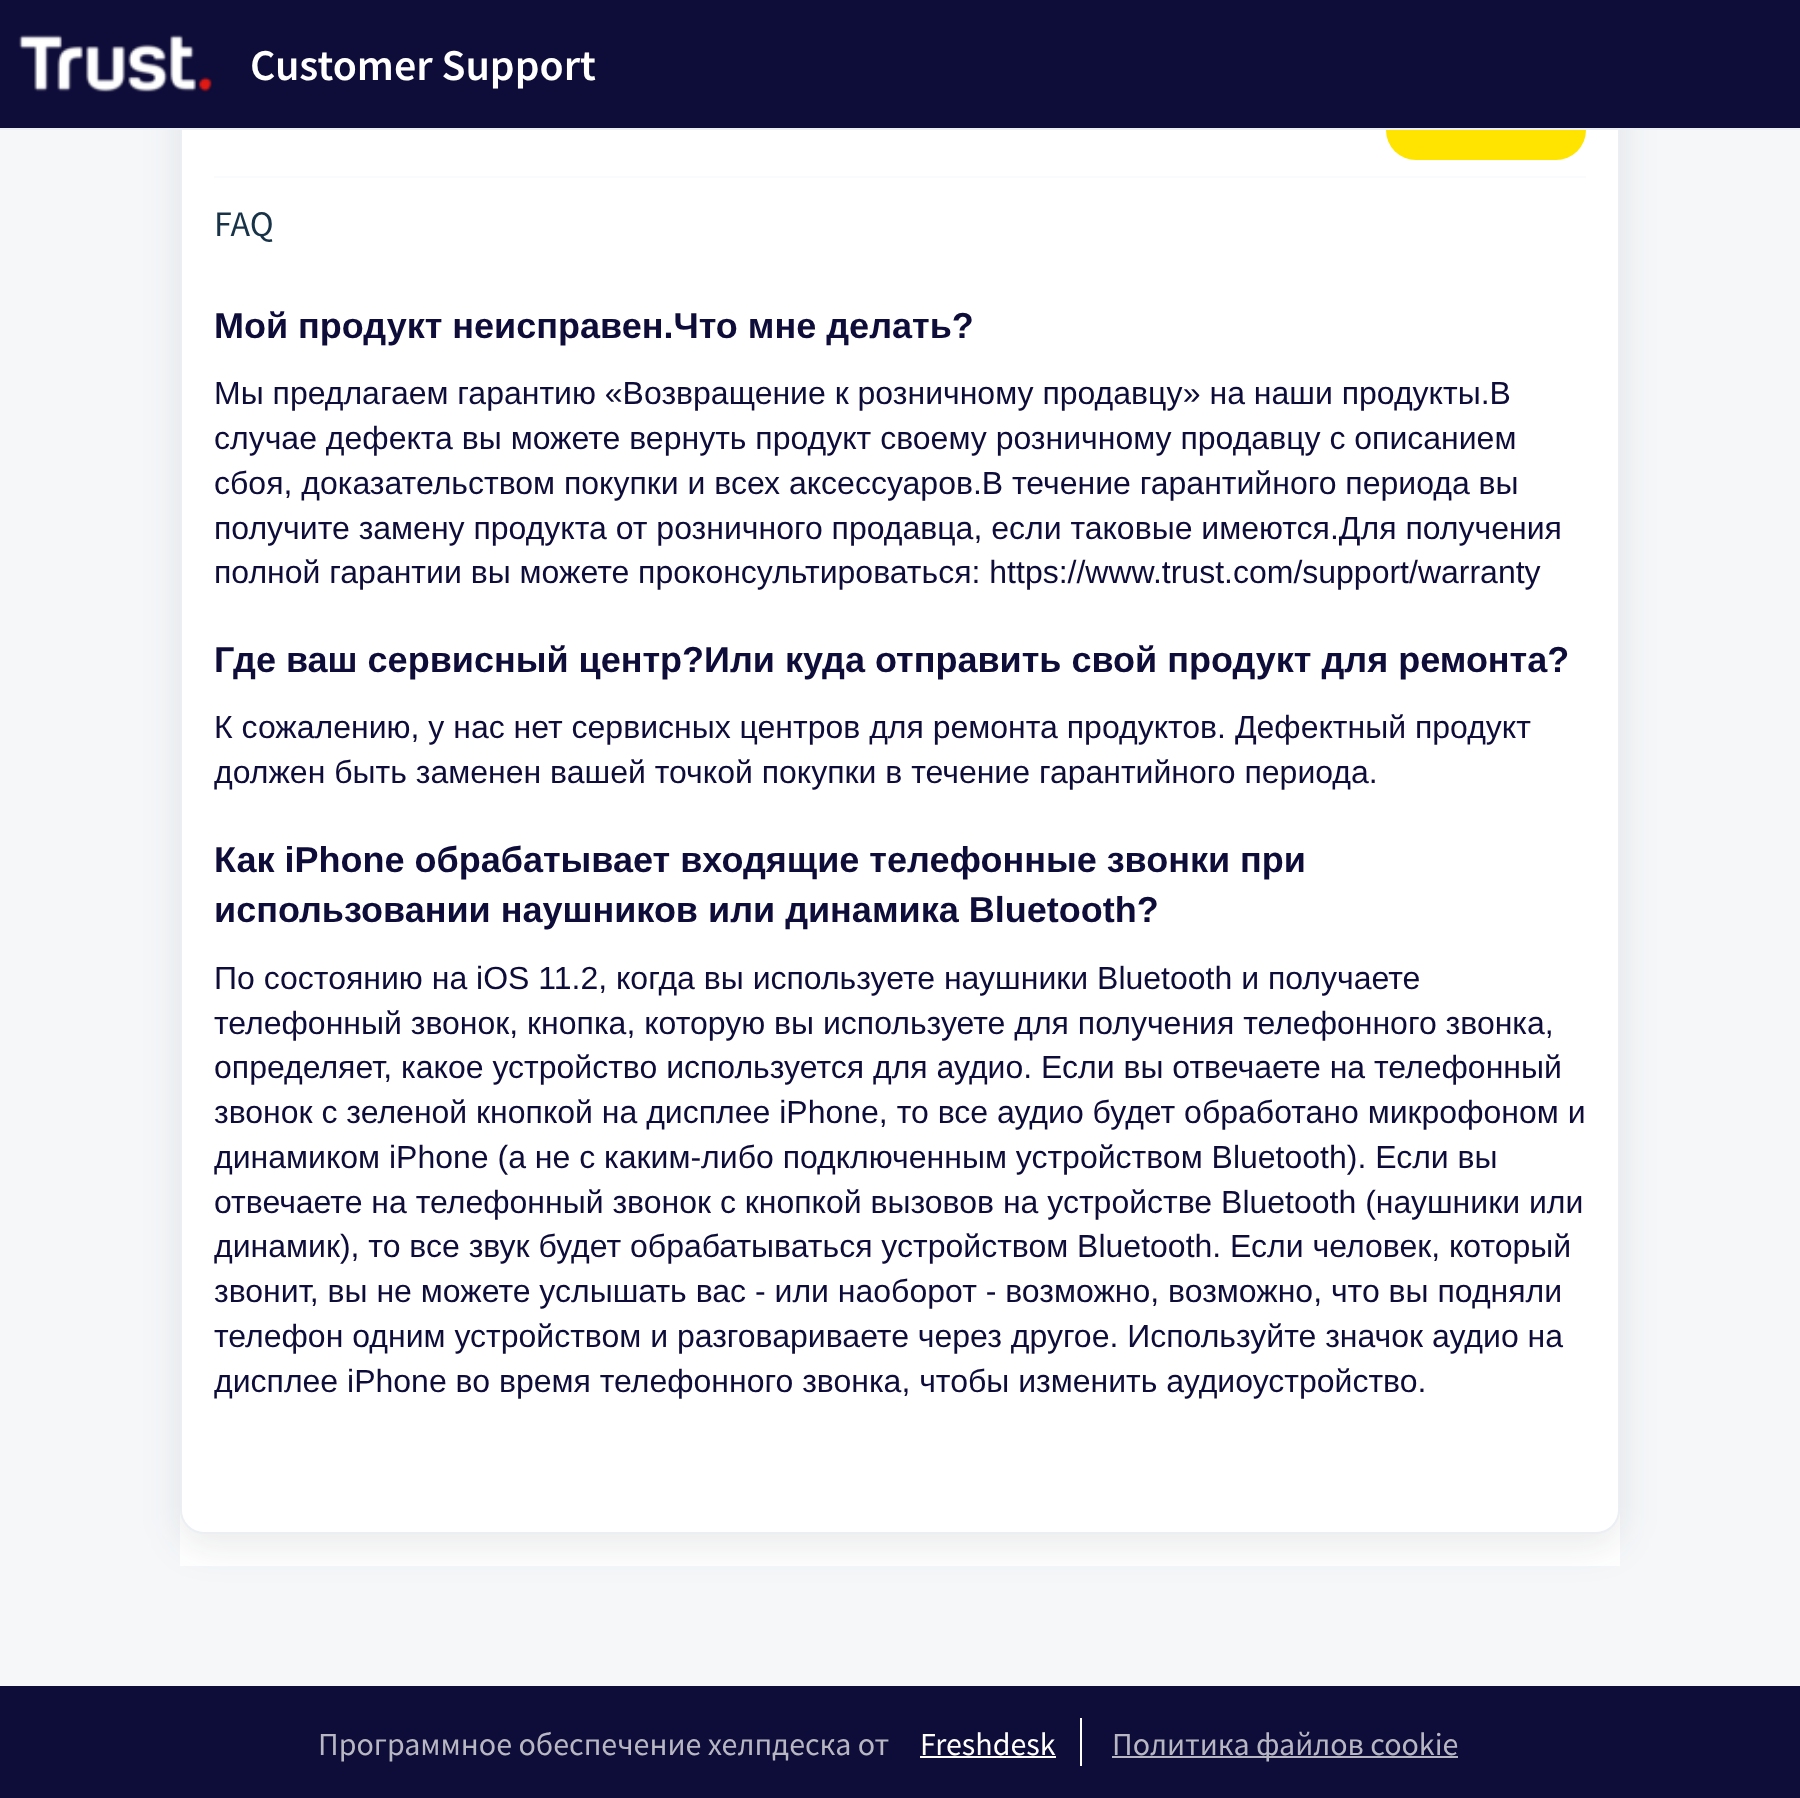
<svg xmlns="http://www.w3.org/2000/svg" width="1800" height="1798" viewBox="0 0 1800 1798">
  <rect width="100%" height="100%" fill="#f5f7f9"/>
  <path d="M180 1510h1440v56H180z" fill="#fff"/>
  <rect x="180" y="-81" width="1440" height="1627" rx="24" fill="#27313a1a" filter="blur(19px)"/>
  <rect x="181" y="-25" width="1438" height="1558" rx="23" fill="#fff" stroke="#ebeff3" stroke-width="2"/>
  <rect x="1386" y="100" width="200" height="60" rx="30" fill="#ffe400"/>
  <path d="M0 0h1800v128H0z" fill="#0e0c38"/>
  <path d="M0 128h1800v2H0z" fill="#ebeff3"/>
  <image x="18" y="34" width="194" height="59" href="img/1.png"/>
  <path d="M214 176h1372v2H214z" fill="#fafbfc"/>
  <path d="M0 1686h1800v112H0z" fill="#0e0c38"/>
  <path d="M1080 1718h2v48H1080z" fill="#fff"/>
  <path d="M920 1756h136v2H920z" fill="#fff"/>
  <path d="M1112 1756h346v2H1112z" fill="#b7b6c3"/>
  <text x="250" y="80" font-family="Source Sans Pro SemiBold" font-size="44" font-weight="600" fill="#fff">Customer Support</text>
  <text x="214" y="236" font-family="Source Sans Pro" font-size="36" fill="#183247">FAQ</text>
  <text x="214" y="338" font-family="Liberation Sans" font-size="36" font-weight="bold" fill="#0e0c38">Мой продукт неисправен.Что мне делать?</text>
  <g font-family="Liberation Sans" font-size="32" fill="#0e0c38">
    <text x="214" y="404">Мы предлагаем гарантию «Возвращение к розничному продавцу» на наши продукты.В</text>
    <text x="214" y="449">случае дефекта вы можете вернуть продукт своему розничному продавцу с описанием</text>
    <text x="214" y="494">сбоя, доказательством покупки и всех аксессуаров.В течение гарантийного периода вы</text>
    <text x="214" y="539">получите замену продукта от розничного продавца, если таковые имеются.Для получения</text>
    <text x="214" y="583">полной гарантии вы можете проконсультироваться: https://www.trust.com/support/warranty</text>
  </g>
  <text x="214" y="672" font-family="Liberation Sans" font-size="36" font-weight="bold" fill="#0e0c38">Где ваш сервисный центр?Или куда отправить свой продукт для ремонта?</text>
  <g font-family="Liberation Sans" font-size="32" fill="#0e0c38">
    <text x="214" y="738">К сожалению, у нас нет сервисных центров для ремонта продуктов. Дефектный продукт</text>
    <text x="214" y="783">должен быть заменен вашей точкой покупки в течение гарантийного периода.</text>
  </g>
  <g font-family="Liberation Sans" font-size="36" font-weight="bold" fill="#0e0c38">
    <text x="214" y="872">Как iPhone обрабатывает входящие телефонные звонки при</text>
    <text x="214" y="922">использовании наушников или динамика Bluetooth?</text>
  </g>
  <g font-family="Liberation Sans" font-size="32" fill="#0e0c38">
    <text x="214" y="989">По состоянию на iOS 11.2, когда вы используете наушники Bluetooth и получаете</text>
    <text x="214" y="1034">телефонный звонок, кнопка, которую вы используете для получения телефонного звонка,</text>
    <text x="214" y="1078">определяет, какое устройство используется для аудио. Если вы отвечаете на телефонный</text>
    <text x="214" y="1123">звонок с зеленой кнопкой на дисплее iPhone, то все аудио будет обработано микрофоном и</text>
    <text x="214" y="1168">динамиком iPhone (а не с каким-либо подключенным устройством Bluetooth). Если вы</text>
    <text x="214" y="1213">отвечаете на телефонный звонок с кнопкой вызовов на устройстве Bluetooth (наушники или</text>
    <text x="214" y="1257">динамик), то все звук будет обрабатываться устройством Bluetooth. Если человек, который</text>
    <text x="214" y="1302">звонит, вы не можете услышать вас - или наоборот - возможно, возможно, что вы подняли</text>
    <text x="214" y="1347">телефон одним устройством и разговариваете через другое. Используйте значок аудио на</text>
    <text x="214" y="1392">дисплее iPhone во время телефонного звонка, чтобы изменить аудиоустройство.</text>
  </g>
  <text x="318" y="1755" font-family="Source Sans Pro" font-size="32" fill="#b7b6c3">Программное обеспечение хелпдеска от</text>
  <text x="920" y="1755" font-family="Source Sans Pro" font-size="32" fill="#fff">Freshdesk</text>
  <text x="1112" y="1755" font-family="Source Sans Pro" font-size="32" fill="#b7b6c3">Политика файлов cookie</text>
</svg>
